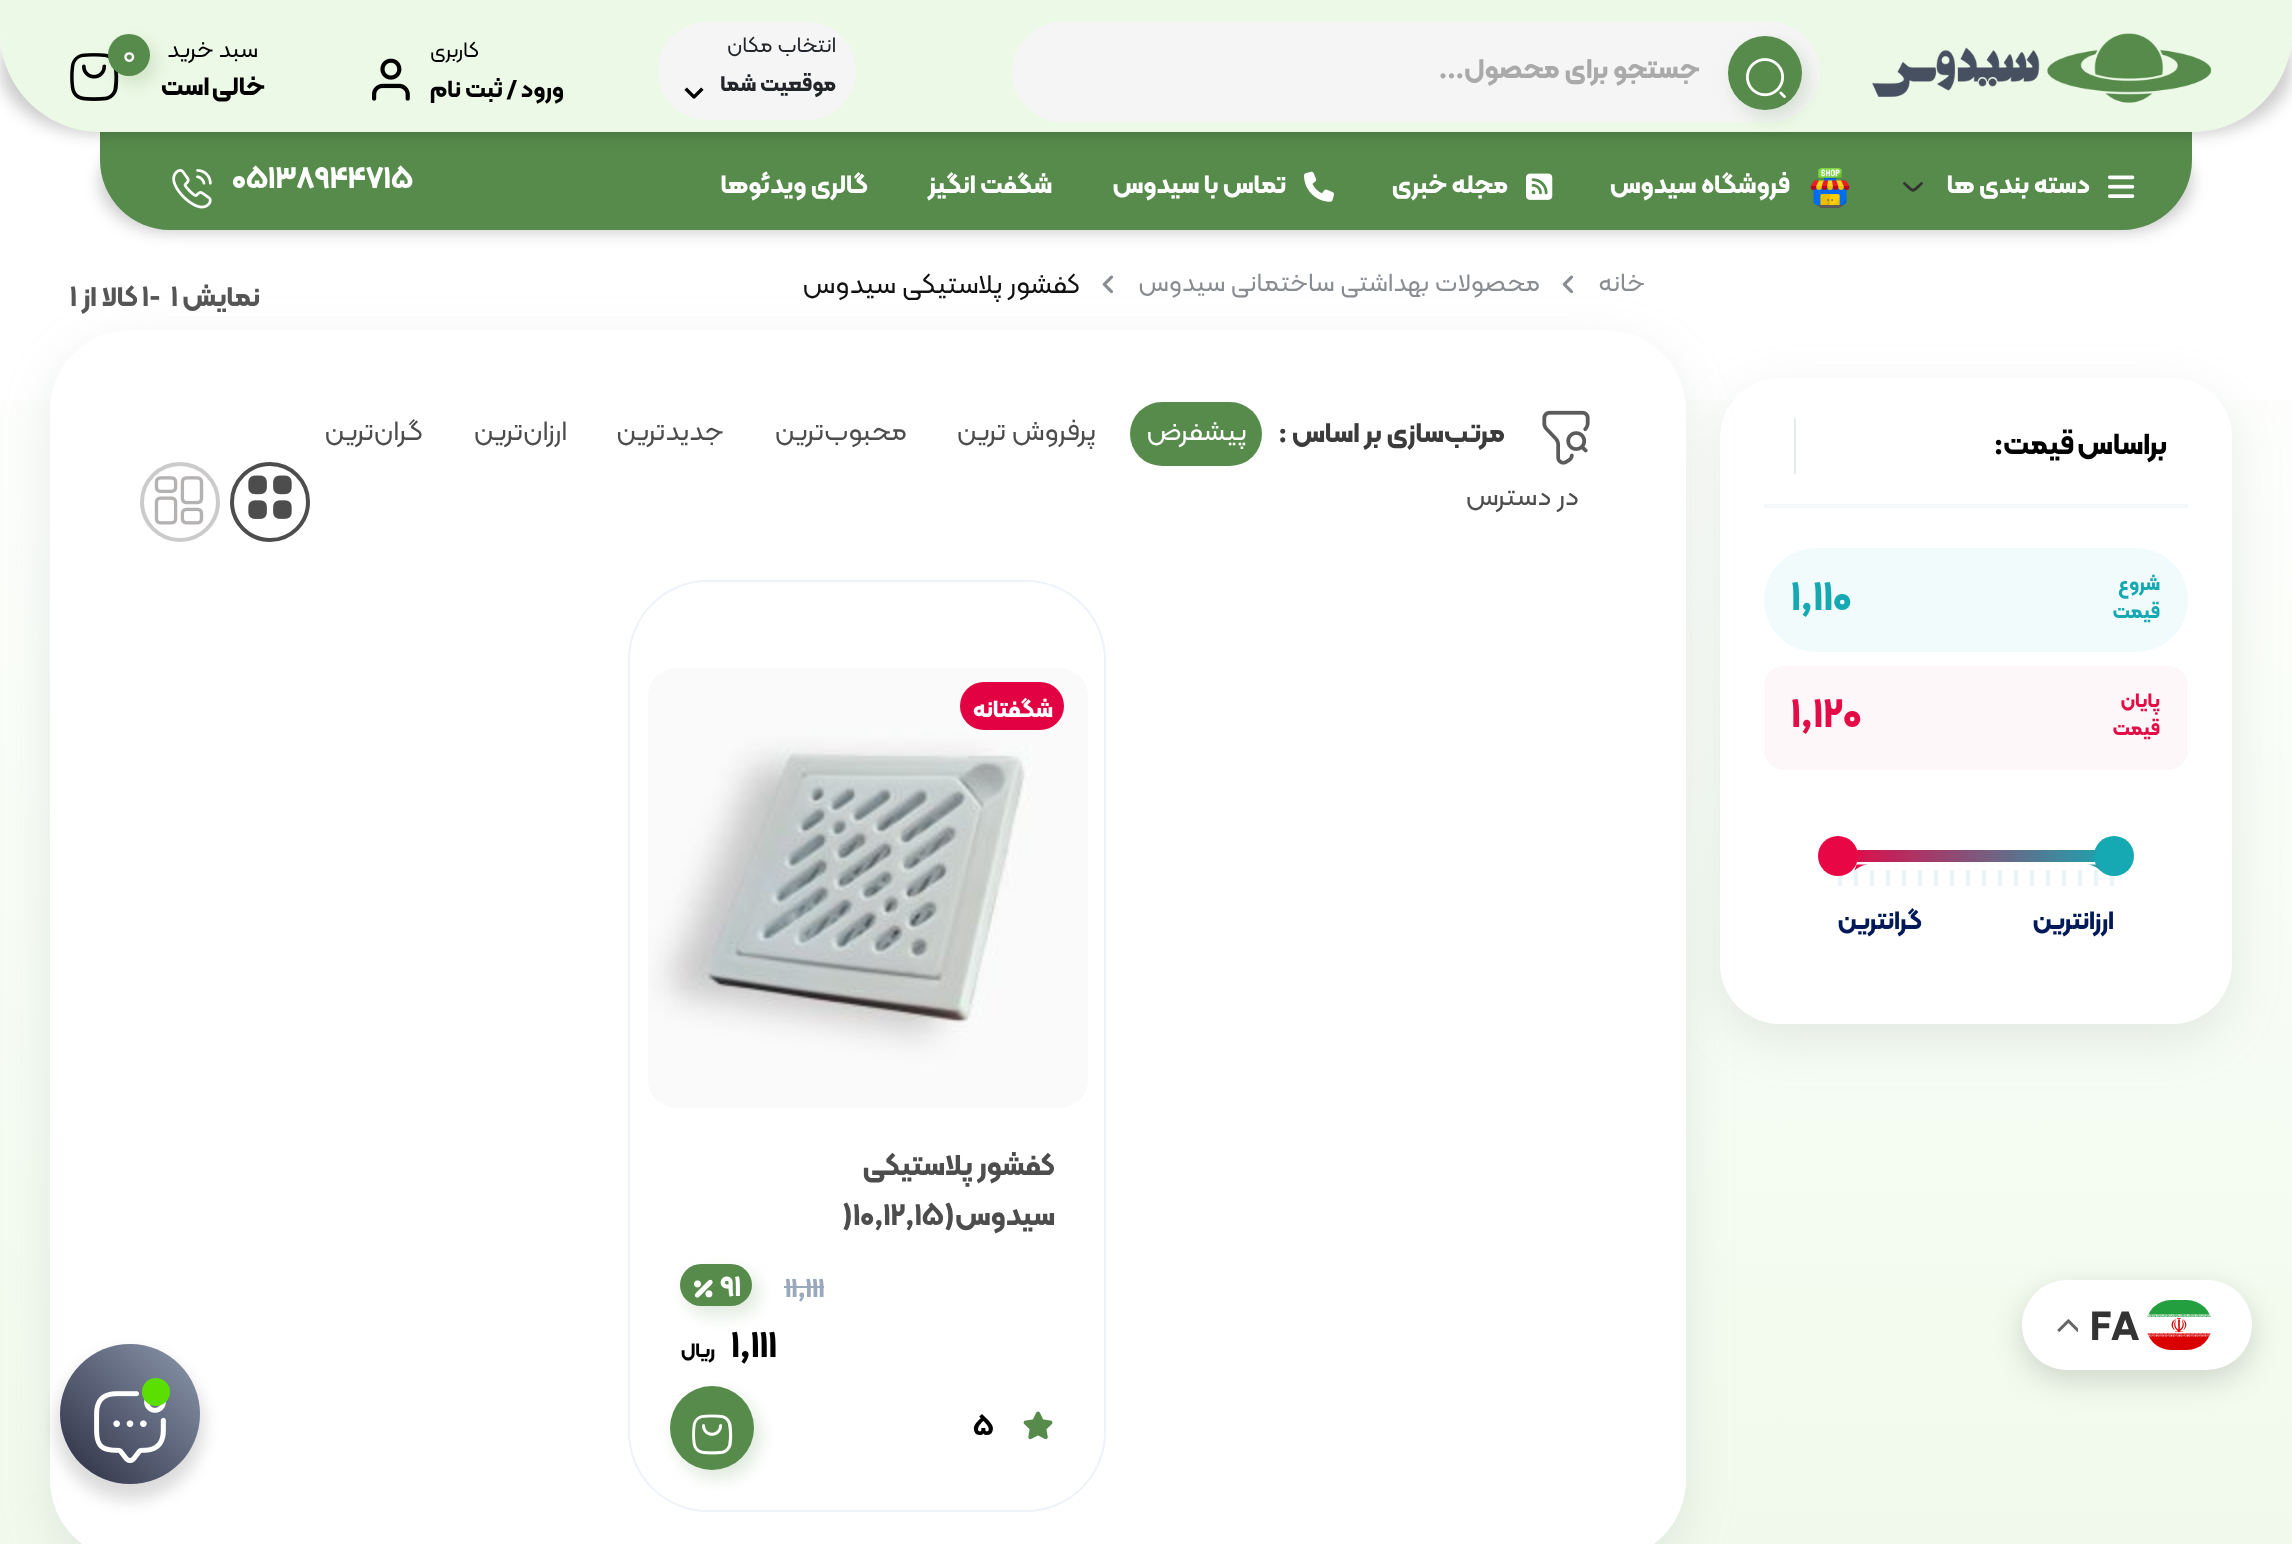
<svg xmlns="http://www.w3.org/2000/svg" width="2292" height="1544" viewBox="0 0 2292 1544">
  <defs>
    <linearGradient id="g1" gradientUnits="userSpaceOnUse" x1="1146" y1="232" x2="1146" y2="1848"><stop offset="0" stop-color="#fff"/><stop offset="1" stop-color="#edf9e7"/></linearGradient>
    <linearGradient id="g2" gradientUnits="userSpaceOnUse" x1="1838" y1="856" x2="2114" y2="856"><stop offset="0" stop-color="#e80645"/><stop offset="1" stop-color="#16a8b3"/></linearGradient>
    <linearGradient id="g3" gradientUnits="userSpaceOnUse" x1="60" y1="1484" x2="200" y2="1344"><stop offset="0" stop-color="#2b2d42"/><stop offset="1" stop-color="#8d99ae"/></linearGradient>
  </defs>
  <rect width="100%" height="100%" fill="#fff"/>
  <rect x="100" y="132" width="2092" height="100" rx="70" fill="#00000033" filter="blur(8px)"/>
  <path d="M100 130H2192V160C2192 198.5 2160.5 230 2122 230H170C131.5 230 100 198.5 100 160Z" fill="#568b4b"/>
  <rect y="2" width="2292" height="132" rx="100" fill="#00000033" filter="blur(8px)"/>
  <path d="M0 0H2292V32C2292 87 2247 132 2192 132H100C45 132 0 87 0 32Z" fill="#edf9e7"/>
  <image x="1872" y="33" width="340" height="70" href="img/1.png"/>
  <rect x="1012" y="22" width="808" height="100" rx="50" fill="#f5f5f5"/>
  <rect x="1734" y="44" width="74" height="74" rx="37" fill="#568b4b33" filter="blur(9px)"/>
  <circle cx="1765" cy="73" r="37" fill="#568b4b"/>
  <image x="1746" y="58" width="40" height="40" href="img/2.png"/>
  <rect x="658" y="22" width="198" height="98" rx="49" fill="#f5f5f5"/>
  <image x="684" y="87" width="20" height="12" href="img/3.png"/>
  <image x="372" y="58" width="38" height="43" href="img/4.png"/>
  <image x="70" y="53" width="49" height="48" href="img/5.png"/>
  <rect x="114" y="42" width="42" height="42" rx="21" fill="#568b4b33" filter="blur(9px)"/>
  <circle cx="129" cy="55" r="21" fill="#568b4b"/>
  <image x="2108" y="175" width="27" height="23" href="img/6.png"/>
  <path d="M1921.5 183.5C1911.5 192.5 1914.5 192.5 1904.5 183.5" fill="none" stroke="#333" stroke-width="2.8" stroke-linecap="round" stroke-linejoin="round"/>
  <image x="1810" y="168" width="40" height="40" href="img/7.png"/>
  <image x="1526" y="173" width="27" height="27" href="img/8.png"/>
  <image x="1304" y="171" width="30" height="31" href="img/9.png"/>
  <image x="172" y="169" width="40" height="40" href="img/10.png"/>
  <path d="M0 400h2292v1144H0z" fill="url(#g1)"/>
  <rect x="1720" y="394" width="512" height="646" rx="60" fill="#969ea633" filter="blur(24px)"/>
  <rect x="1720" y="378" width="512" height="646" rx="60" fill="#fff"/>
  <path d="M1794 418h2v56H1794z" fill="#e5ecee"/>
  <path d="M1764 504h424v4H1764z" fill="#f5f9fa"/>
  <rect x="1764" y="548" width="424" height="104" rx="52" fill="#f2fbfc"/>
  <rect x="1764" y="666" width="424" height="104" rx="20" fill="#fef7f9"/>
  <path d="M1857 850h238v12H1857z" fill="url(#g2)"/>
  <path d="M2110 870h4v16H2110z" fill="#e9f5f8"/>
  <path d="M2094 870h4v16H2094z" fill="#e9f5f8"/>
  <circle cx="2114" cy="856" r="20" fill="#16a8b3"/>
  <image x="2092" y="849" width="5" height="6" href="img/11.png"/>
  <image x="2088" y="864" width="13" height="7" href="img/12.png"/>
  <path d="M1854 870h4v16H1854z" fill="#e9f5f8"/>
  <path d="M1838 870h4v16H1838z" fill="#e9f5f8"/>
  <circle cx="1838" cy="856" r="20" fill="#e80645"/>
  <image x="1857" y="851" width="10" height="4" href="img/13.png"/>
  <image x="1854" y="864" width="14" height="7" href="img/14.png"/>
  <path d="M2078 870h4v16H2078z" fill="#e9f5f8"/>
  <path d="M2062 870h4v16H2062z" fill="#e9f5f8"/>
  <path d="M2046 870h4v16H2046z" fill="#e9f5f8"/>
  <path d="M2030 870h4v16H2030z" fill="#e9f5f8"/>
  <path d="M2014 870h4v16H2014z" fill="#e9f5f8"/>
  <path d="M1998 870h4v16H1998z" fill="#e9f5f8"/>
  <path d="M1982 870h4v16H1982z" fill="#e9f5f8"/>
  <path d="M1966 870h4v16H1966z" fill="#e9f5f8"/>
  <path d="M1950 870h4v16H1950z" fill="#e9f5f8"/>
  <path d="M1934 870h4v16H1934z" fill="#e9f5f8"/>
  <path d="M1918 870h4v16H1918z" fill="#e9f5f8"/>
  <path d="M1902 870h4v16H1902z" fill="#e9f5f8"/>
  <path d="M1886 870h4v16H1886z" fill="#e9f5f8"/>
  <path d="M1870 870h4v16H1870z" fill="#e9f5f8"/>
  <image x="1562" y="275" width="12" height="19" href="img/15.png"/>
  <image x="1102" y="275" width="12" height="19" href="img/15.png"/>
  <rect x="50" y="346" width="1636" height="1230" rx="80" fill="#969ea633" filter="blur(24px)"/>
  <rect x="50" y="330" width="1636" height="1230" rx="80" fill="#fff"/>
  <image x="1542" y="410" width="48" height="55" href="img/16.png"/>
  <rect x="1130" y="402" width="132" height="64" rx="32" fill="#568b4b"/>
  <circle cx="270" cy="502" r="38" fill="none" stroke="#4d4d4d" stroke-width="4"/>
  <image x="248" y="475" width="44" height="44" href="img/17.png"/>
  <circle cx="180" cy="502" r="38" fill="none" stroke="#cbcbcb" stroke-width="4"/>
  <image x="154" y="476" width="50" height="49" href="img/18.png"/>
  <rect x="629" y="581" width="476" height="930" rx="79" fill="none" stroke="#eef2f9" stroke-width="2"/>
  <image x="648" y="668" width="440" height="440" href="img/19.png"/>
  <rect x="960" y="682" width="104" height="48" rx="24" fill="#e20142"/>
  <path d="M784 1286h40v2H784z" fill="#9aa8bc"/>
  <rect x="686" y="1272" width="72" height="42" rx="21" fill="#568b4b33" filter="blur(9px)"/>
  <rect x="680" y="1264" width="72" height="42" rx="21" fill="#568b4b"/>
  <image x="694" y="1279" width="19" height="19" href="img/20.png"/>
  <image x="1023" y="1411" width="30" height="29" href="img/21.png"/>
  <rect x="676" y="1394" width="84" height="84" rx="42" fill="#568b4b33" filter="blur(9px)"/>
  <circle cx="712" cy="1428" r="42" fill="#568b4b"/>
  <image x="692" y="1414" width="41" height="41" href="img/22.png"/>
  <rect x="2022" y="1290" width="230" height="90" rx="45" fill="#00000026" filter="blur(15px)"/>
  <rect x="2022" y="1280" width="230" height="90" rx="45" fill="#fff"/>
  <image x="2147" y="1300" width="64" height="50" href="img/23.png"/>
  <image x="2057" y="1319" width="21" height="13" href="img/24.png"/>
  <rect x="56" y="1352" width="148" height="148" rx="74" fill="#00000024" filter="blur(8px)"/>
  <circle cx="130" cy="1414" r="70" fill="url(#g3)"/>
  <image x="94" y="1391" width="72" height="72" href="img/25.png"/>
  <circle cx="156" cy="1392" r="14" fill="#5bdf00"/>
  <text x="1700" y="78" font-family="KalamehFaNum" font-size="28" font-weight="bold" direction="rtl" fill="#aaa">جستجو برای محصول...</text>
  <text x="836" y="52" font-family="KalamehFaNum" font-size="22" direction="rtl" fill="#212529">انتخاب مکان</text>
  <text x="836" y="91" font-family="KalamehFaNum" font-size="22" font-weight="bold" direction="rtl" fill="#212529">موقعیت شما</text>
  <text x="479" y="57" font-family="KalamehFaNum" font-size="22" direction="rtl" fill="#000">کاربری</text>
  <text x="564" y="97" font-family="KalamehFaNum" font-size="24" font-weight="bold" direction="rtl" fill="#000">ورود / ثبت نام</text>
  <text x="258" y="57" font-family="KalamehFaNum" font-size="24" direction="rtl" fill="#000">سبد خرید</text>
  <text x="265" y="95" word-spacing="-2" font-family="KalamehFaNum" font-size="26" font-weight="bold" letter-spacing="1" direction="rtl" fill="#000">خالی است</text>
  <text x="123" y="62" font-family="KalamehFaNum" font-size="28" fill="#fff">0</text>
  <g font-family="KalamehFaNum" font-size="26" font-weight="bold" direction="rtl" fill="#fff">
    <text x="2090" y="193">دسته بندی ها</text>
    <text x="1790" y="193">فروشگاه سیدوس</text>
    <text x="1508" y="193">مجله خبری</text>
    <text x="1286" y="193">تماس با سیدوس</text>
    <text x="1052" y="193">شگفت انگیز</text>
    <text x="868" y="193">گالری ویدئوها</text>
  </g>
  <text x="232" y="188" font-family="KalamehFaNum" font-size="30" font-weight="bold" fill="#fff">05138944715</text>
  <text x="2167" y="454" word-spacing="-2" font-family="KalamehFaNum" font-size="30" font-weight="bold" letter-spacing="0.4" direction="rtl" fill="#000">براساس قیمت:</text>
  <g font-family="KalamehFaNum" font-size="20" font-weight="bold" direction="rtl" fill="#16a8b3">
    <text x="2160" y="590">شروع</text>
    <text x="2160" y="618">قیمت</text>
  </g>
  <text x="1791" y="610" font-family="KalamehFaNum" font-size="40" font-weight="bold" letter-spacing="-1" fill="#16a8b3">۱٬۱۱۰</text>
  <g font-family="KalamehFaNum" font-size="20" font-weight="bold" direction="rtl" fill="#e30c47">
    <text x="2160" y="707">پایان</text>
    <text x="2160" y="735">قیمت</text>
  </g>
  <text x="1791" y="727" font-family="KalamehFaNum" font-size="40" font-weight="bold" letter-spacing="-1" fill="#e30c47">۱٬۱۲۰</text>
  <g font-family="KalamehFaNum" font-size="26" font-weight="bold" direction="rtl" fill="#021959">
    <text x="2114" y="929">ارزانترین</text>
    <text x="1922" y="929">گرانترین</text>
  </g>
  <g font-family="KalamehFaNum" font-size="26" direction="rtl" fill="#898d92">
    <text x="1645" y="291">خانه</text>
    <text x="1540" y="291">محصولات بهداشتی ساختمانی سیدوس</text>
  </g>
  <text x="1080" y="293" font-family="KalamehFaNum" font-size="28" direction="rtl" fill="#111">کفشور پلاستیکی سیدوس</text>
  <text x="260" y="306" font-family="KalamehFaNum" font-size="28" font-weight="bold" direction="rtl" fill="#555">نمایش</text>
  <g font-family="KalamehFaNum" font-size="28" font-weight="bold" fill="#555">
    <text x="171" y="306">1</text>
    <text x="149" y="306">-</text>
    <text x="142" y="306">1</text>
  </g>
  <text x="138" y="306" font-family="KalamehFaNum" font-size="28" font-weight="bold" direction="rtl" fill="#555">کالا از</text>
  <text x="70" y="306" font-family="KalamehFaNum" font-size="28" font-weight="bold" fill="#555">1</text>
  <text x="1505" y="442" font-family="KalamehFaNum" font-size="28" font-weight="bold" direction="rtl" fill="#3b3b3b">مرتب‌سازی بر اساس :</text>
  <text x="1247" y="440" font-family="KalamehFaNum" font-size="28" direction="rtl" fill="#fff">پیشفرض</text>
  <g font-family="KalamehFaNum" font-size="28" direction="rtl" fill="#4d4d4d">
    <text x="1096" y="440">پرفروش ترین</text>
    <text x="907" y="440">محبوب‌ترین</text>
    <text x="724" y="440">جدیدترین</text>
    <text x="567" y="440">ارزان‌ترین</text>
    <text x="423" y="440">گران‌ترین</text>
    <text x="1579" y="505">در دسترس</text>
  </g>
  <text x="1053" y="717" font-family="KalamehFaNum" font-size="24" font-weight="bold" direction="rtl" fill="#fff">شگفتانه</text>
  <g font-family="KalamehFaNum" font-size="30" font-weight="bold" direction="rtl" fill="#4d4d4d">
    <text x="1055" y="1175">کفشور پلاستیکی</text>
    <text x="1055" y="1225">سیدوس(</text>
  </g>
  <text x="842" y="1225" font-family="KalamehFaNum" font-size="30" font-weight="bold" fill="#4d4d4d">)10,12,15</text>
  <text x="720" y="1296" font-family="KalamehFaNum" font-size="28" font-weight="bold" fill="#fff">91</text>
  <text x="785" y="1297" font-family="KalamehFaNum" font-size="26" font-weight="bold" fill="#9aa8bc">۱۱,۱۱۱</text>
  <text x="731" y="1357" font-family="KalamehFaNum" font-size="36" font-weight="bold" fill="#000">۱,۱۱۱</text>
  <text x="715" y="1357" font-family="KalamehFaNum" font-size="20" font-weight="bold" direction="rtl" fill="#000">ریال</text>
  <text x="973" y="1435" font-family="KalamehFaNum" font-size="28" font-weight="bold" fill="#000">5</text>
  <text x="2090" y="1340" font-family="KalamehFaNum" font-size="40" font-weight="bold" fill="#333">FA</text>
</svg>
